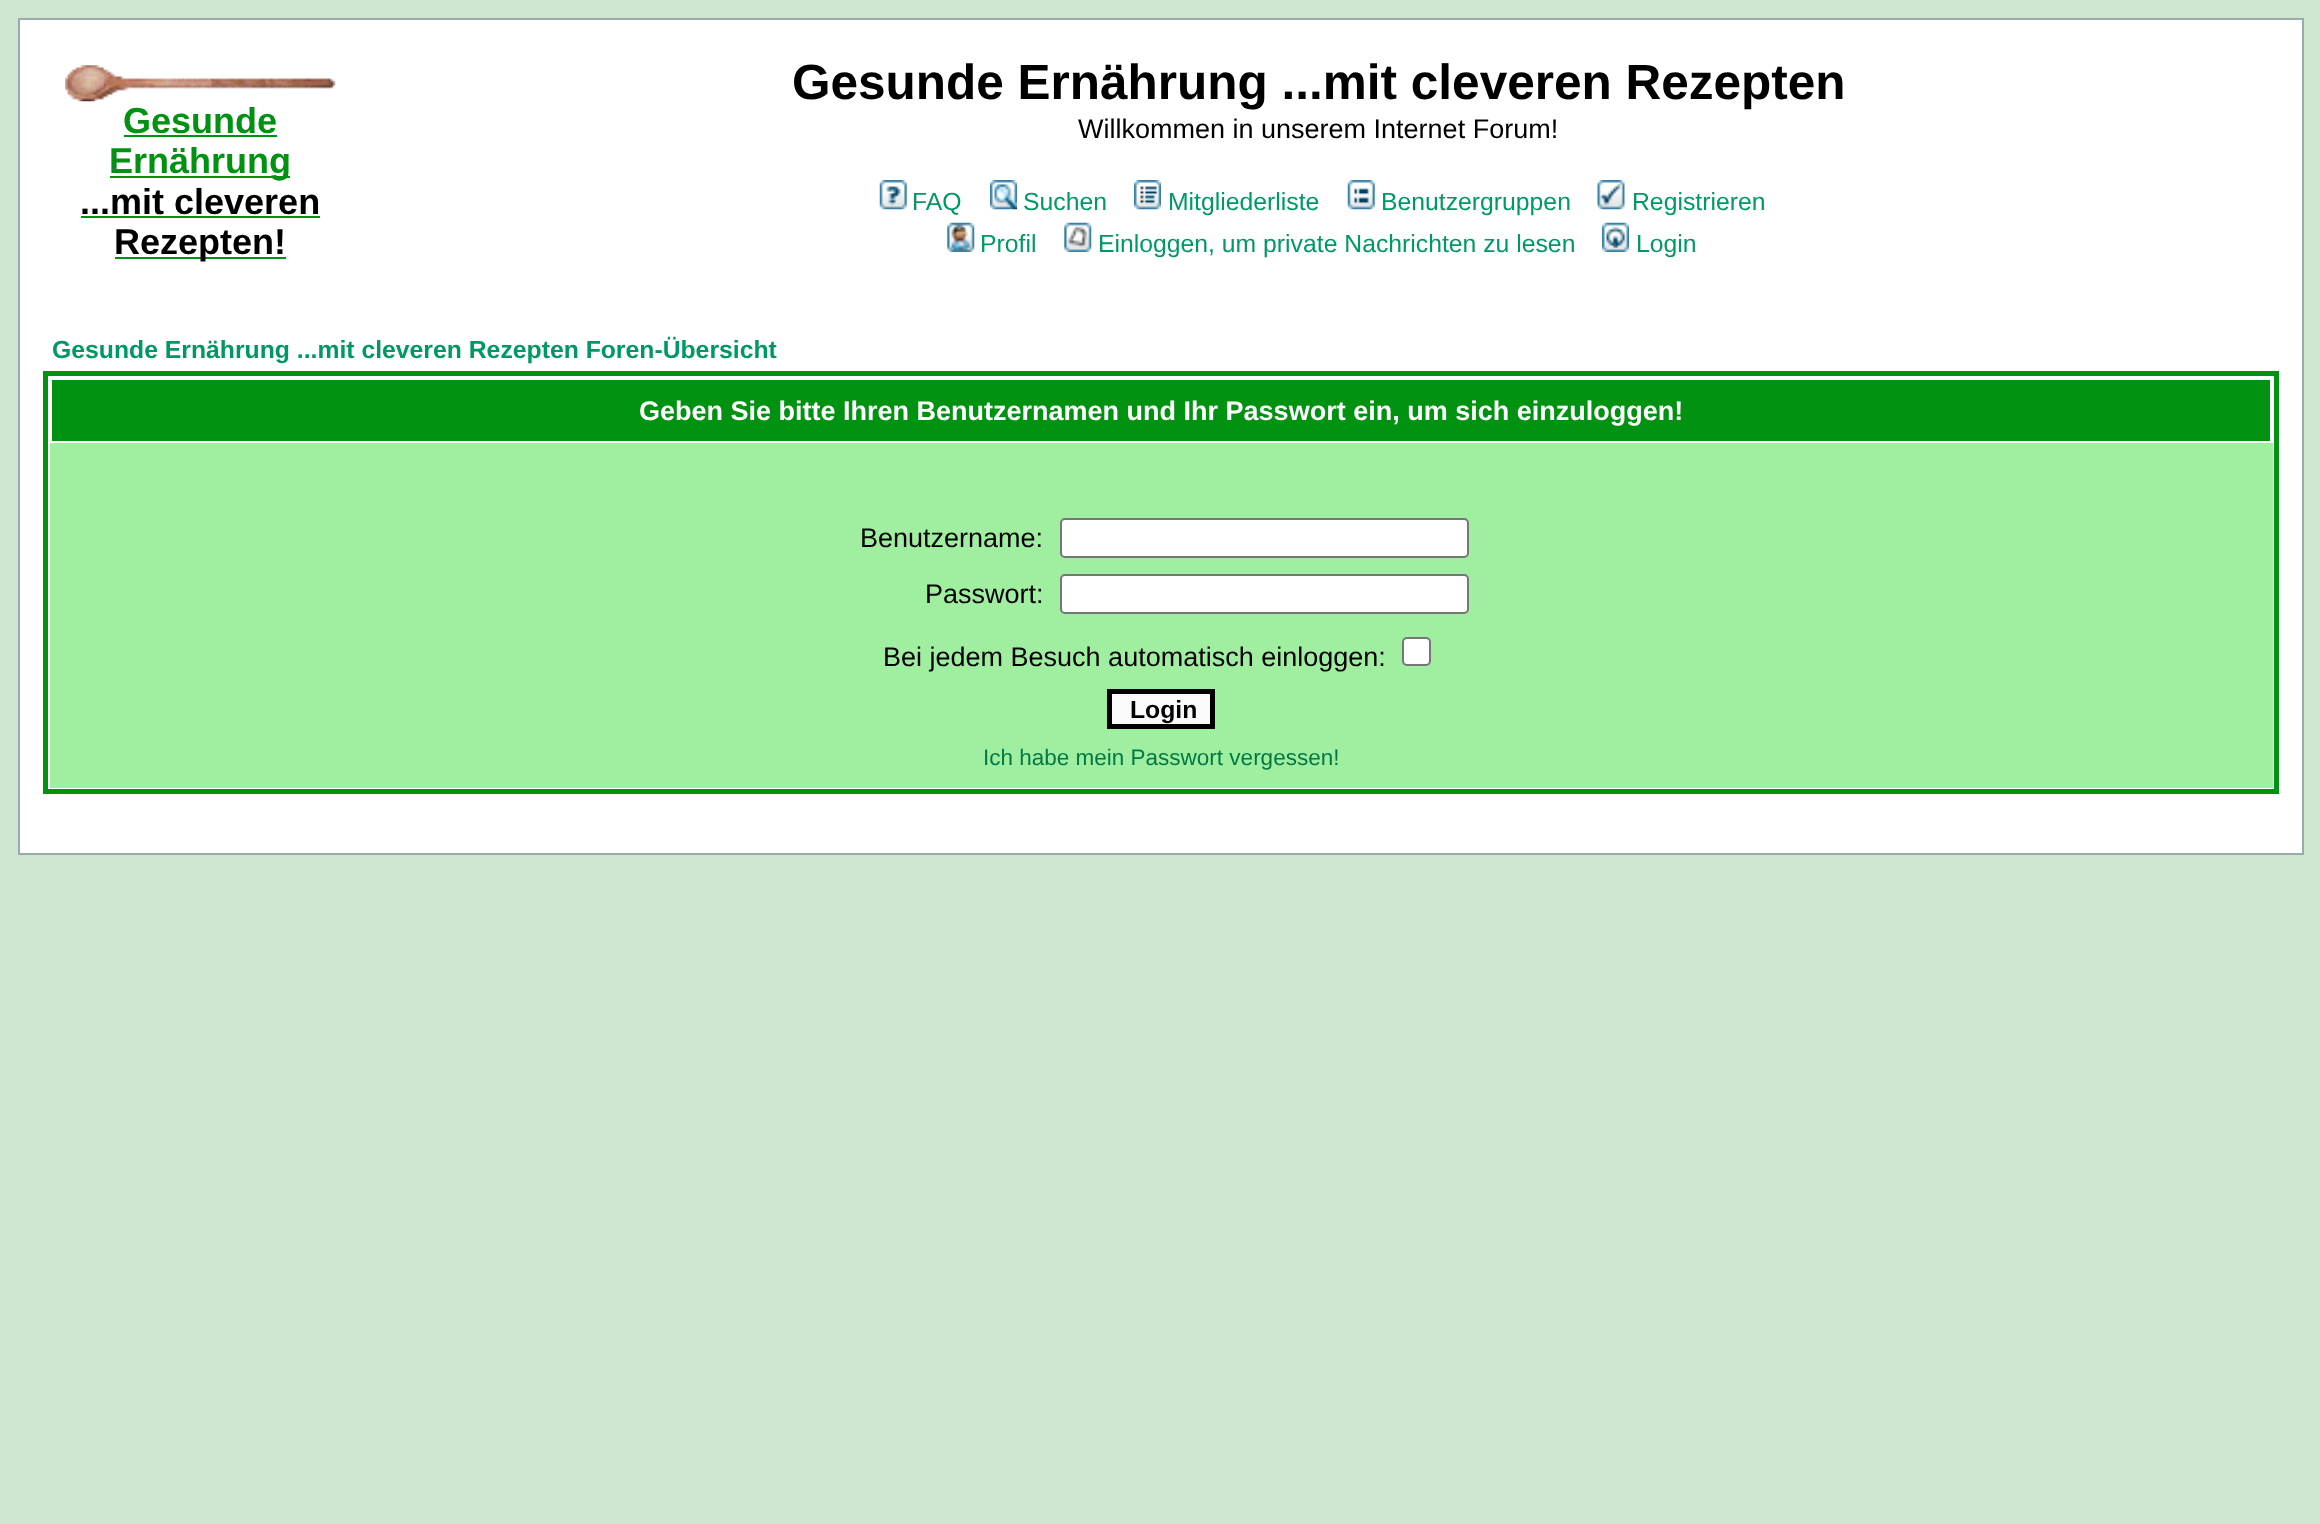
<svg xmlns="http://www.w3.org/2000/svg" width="2320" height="1524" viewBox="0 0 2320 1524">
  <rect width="100%" height="100%" fill="#d0e5d0"/>
  <path d="M19 19h2284v835H19z" fill="#fff" stroke="#98aab1" stroke-width="2"/>
  <image x="65" y="65" width="271" height="37" href="img/1.png"/>
  <path d="M124 135h153v2H124z" fill="#009210"/>
  <path d="M110 176h180v2H110z" fill="#009210"/>
  <path d="M81 216h239v2H81z" fill="#009210"/>
  <path d="M115 257h171v2H115z" fill="#009210"/>
  <image x="879" y="180" width="28" height="30" href="img/2.png"/>
  <image x="990" y="180" width="27" height="30" href="img/3.png"/>
  <image x="1134" y="180" width="27" height="30" href="img/4.png"/>
  <image x="1347" y="180" width="28" height="30" href="img/5.png"/>
  <image x="1597" y="180" width="28" height="30" href="img/6.png"/>
  <image x="947" y="222" width="28" height="30" href="img/7.png"/>
  <image x="1064" y="222" width="28" height="30" href="img/8.png"/>
  <image x="1602" y="222" width="27" height="30" href="img/9.png"/>
  <path d="M45.5 373.5h2231v418H45.5z" fill="none" stroke="#009210" stroke-width="5"/>
  <path d="M52 380h2218v61H52z" fill="#009210"/>
  <path d="M50 443h2223v345H50z" fill="#a0efa0"/>
  <rect x="1061" y="519" width="407" height="38" rx="4" fill="#fff" stroke="#767676" stroke-width="2"/>
  <rect x="1061" y="575" width="407" height="38" rx="4" fill="#fff" stroke="#767676" stroke-width="2"/>
  <rect x="1403" y="638" width="27" height="27" rx="4" fill="#fff" stroke="#767676" stroke-width="2"/>
  <path d="M1109.5 691.5h103v35H1109.5z" fill="#fafafa" stroke="#000" stroke-width="5"/>
  <g font-family="Liberation Sans" font-size="36" font-weight="bold" fill="#009210">
    <text x="123" y="133">Gesunde</text>
    <text x="109" y="173">Ernährung</text>
  </g>
  <g font-family="Liberation Sans" font-size="36" font-weight="bold" fill="#000">
    <text x="80" y="214">...mit cleveren</text>
    <text x="114" y="254">Rezepten!</text>
  </g>
  <text x="792" y="99" font-family="Liberation Sans" font-size="49.5" font-weight="bold" fill="#000">Gesunde Ernährung ...mit cleveren Rezepten</text>
  <text x="1078" y="138" font-family="Liberation Sans" font-size="27" fill="#000">Willkommen in unserem Internet Forum!</text>
  <g font-family="Liberation Sans" font-size="24.75" fill="#096">
    <text x="912" y="210">FAQ</text>
    <text x="1023" y="210">Suchen</text>
    <text x="1168" y="210">Mitgliederliste</text>
    <text x="1381" y="210">Benutzergruppen</text>
    <text x="1632" y="210">Registrieren</text>
    <text x="980" y="252">Profil</text>
    <text x="1098" y="252">Einloggen, um private Nachrichten zu lesen</text>
    <text x="1636" y="252">Login</text>
  </g>
  <text x="52" y="358" font-family="Liberation Sans" font-size="24.75" font-weight="bold" fill="#096">Gesunde Ernährung ...mit cleveren Rezepten Foren-Übersicht</text>
  <text x="639" y="420" font-family="Liberation Sans" font-size="27" font-weight="bold" fill="#fff">Geben Sie bitte Ihren Benutzernamen und Ihr Passwort ein, um sich einzuloggen!</text>
  <g font-family="Liberation Sans" font-size="27" fill="#000">
    <text x="860" y="547">Benutzername:</text>
    <text x="925" y="603">Passwort:</text>
    <text x="883" y="666">Bei jedem Besuch automatisch einloggen:</text>
  </g>
  <text x="1130" y="718" font-family="Liberation Sans" font-size="24.75" font-weight="bold" fill="#000">Login</text>
  <text x="983" y="765" font-family="Liberation Sans" font-size="22.5" fill="#007946">Ich habe mein Passwort vergessen!</text>
</svg>
